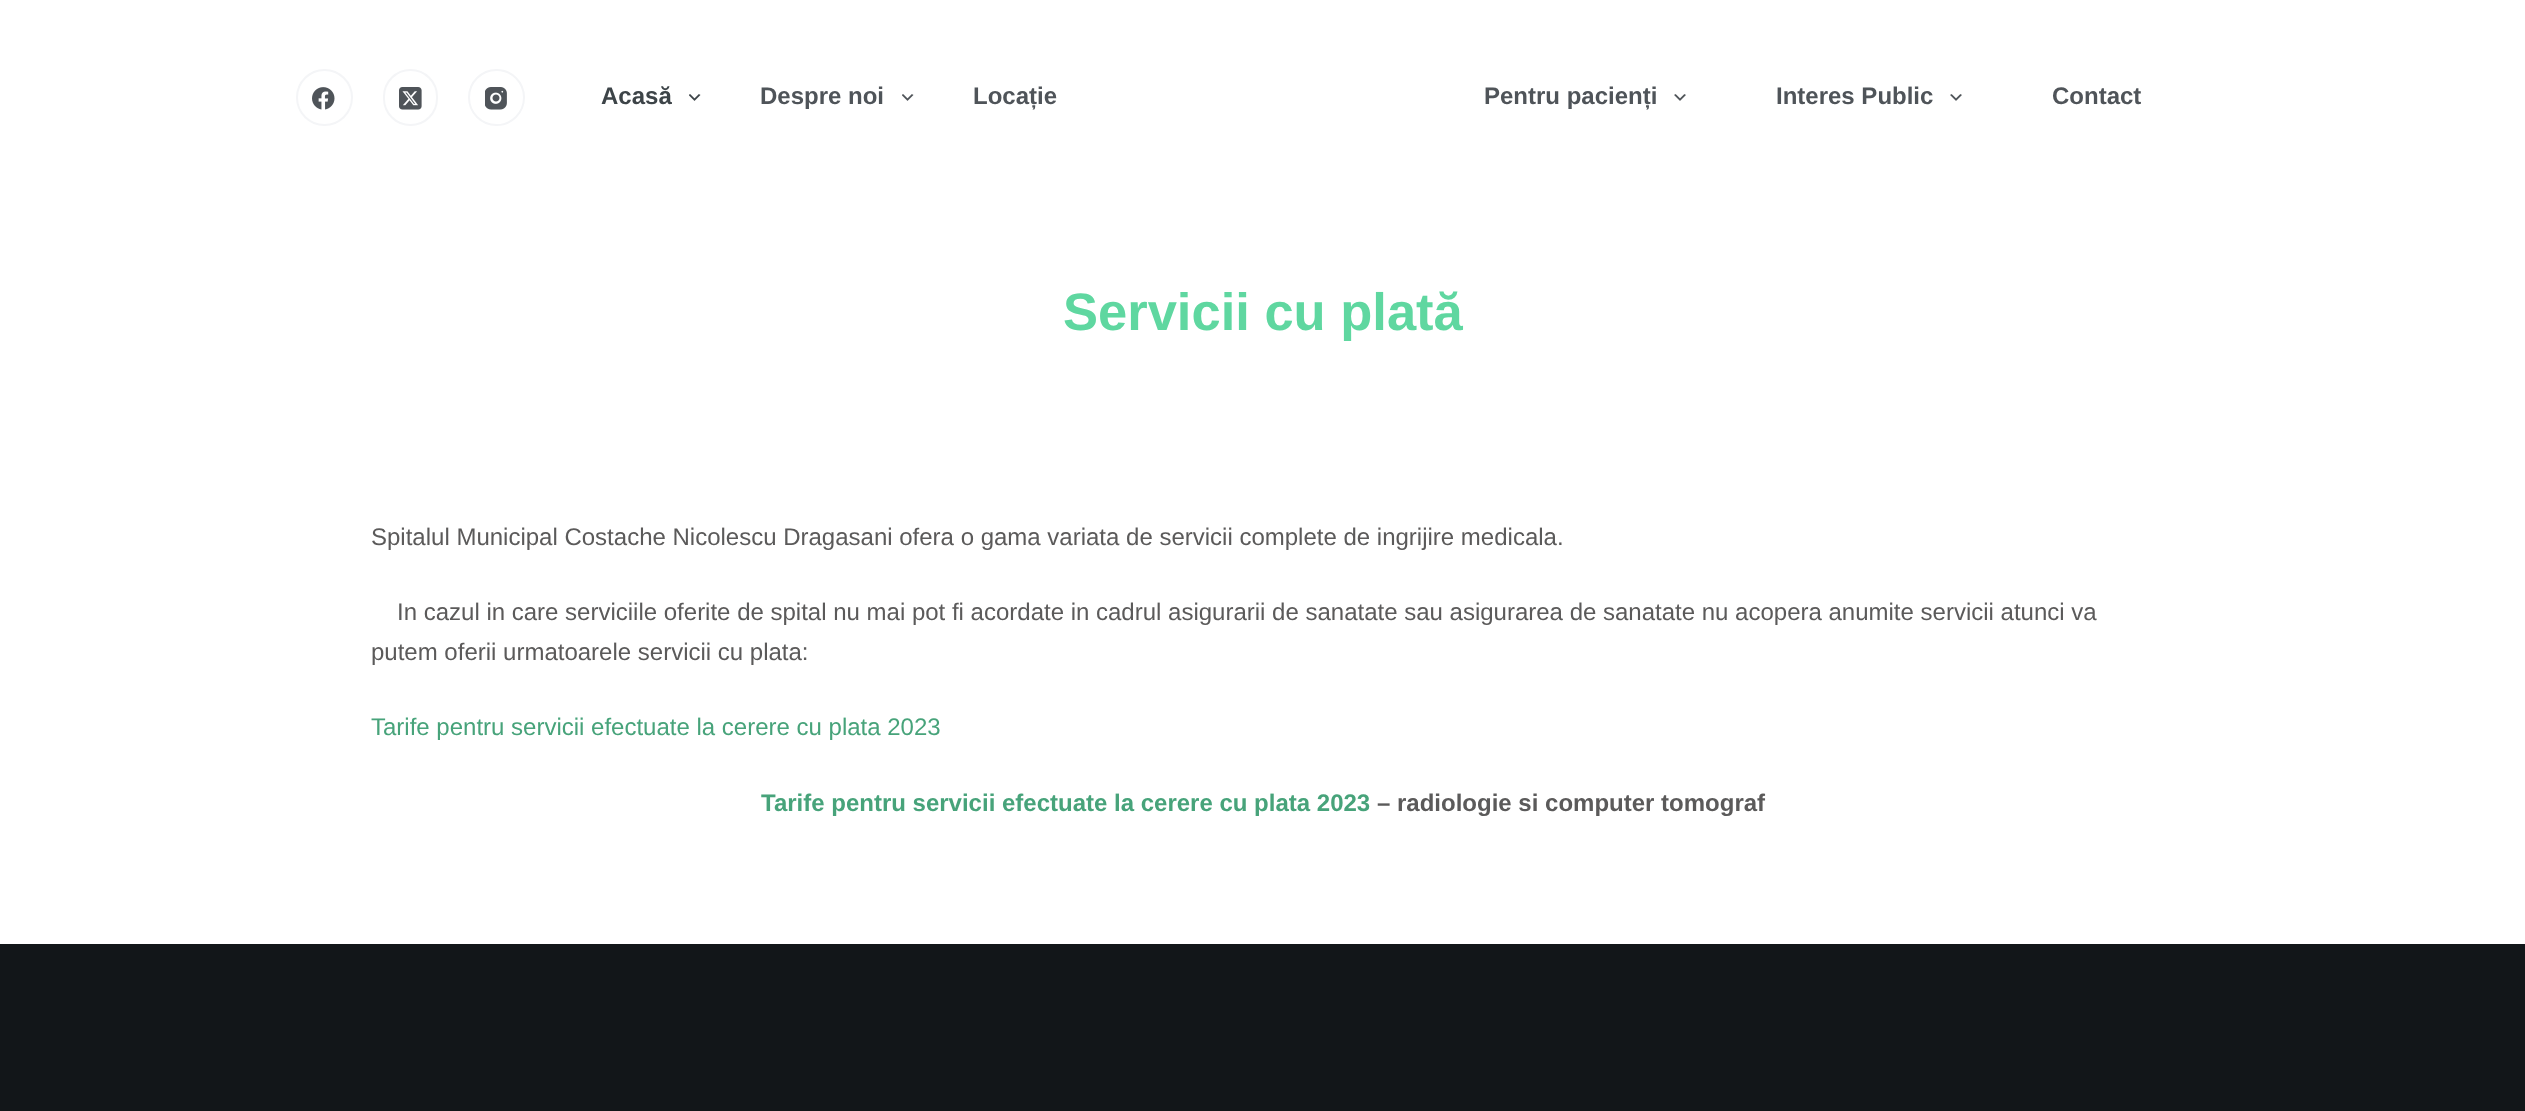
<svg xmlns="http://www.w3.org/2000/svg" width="2525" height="1111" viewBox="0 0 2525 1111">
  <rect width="100%" height="100%" fill="#fff"/>
  <circle cx="324.5" cy="97.5" r="27.5" fill="none" stroke="#f4f5f7" stroke-width="2"/>
  <image x="312" y="87" width="23" height="23" href="img/1.png"/>
  <rect x="384" y="70" width="53" height="55" rx="26.5" fill="none" stroke="#f4f5f7" stroke-width="2"/>
  <image x="399" y="87" width="23" height="23" href="img/2.png"/>
  <circle cx="496.5" cy="97.5" r="27.5" fill="none" stroke="#f4f5f7" stroke-width="2"/>
  <image x="485" y="87" width="22" height="23" href="img/3.png"/>
  <image x="689" y="94" width="12" height="7" href="img/4.png"/>
  <image x="902" y="94" width="12" height="7" href="img/5.png"/>
  <image x="1674" y="94" width="12" height="7" href="img/6.png"/>
  <image x="1950" y="94" width="12" height="7" href="img/6.png"/>
  <path d="M0 944h2525v167H0z" fill="#121619"/>
  <text x="601" y="104" font-family="Liberation Sans" font-size="24" font-weight="bold" fill="#3d4448">Acasă</text>
  <g font-family="Liberation Sans" font-size="24" font-weight="bold" fill="#4f5459">
    <text x="760" y="104">Despre noi</text>
    <text x="973" y="104">Locație</text>
    <text x="1484" y="104">Pentru pacienți</text>
    <text x="1776" y="104">Interes Public</text>
    <text x="2052" y="104">Contact</text>
  </g>
  <text x="1063" y="330" font-family="Liberation Sans" font-size="52.5" font-weight="bold" fill="#5fd7a0">Servicii cu plată</text>
  <g font-family="Liberation Sans" font-size="24" fill="#5b5a5a">
    <text x="371" y="545">Spitalul Municipal Costache Nicolescu Dragasani ofera o gama variata de servicii complete de ingrijire medicala.</text>
    <text x="397" y="620">In cazul in care serviciile oferite de spital nu mai pot fi acordate in cadrul asigurarii de sanatate sau asigurarea de sanatate nu acopera anumite servicii atunci va</text>
    <text x="371" y="660">putem oferii urmatoarele servicii cu plata:</text>
  </g>
  <text x="371" y="735" font-family="Liberation Sans" font-size="24" fill="#47a37a">Tarife pentru servicii efectuate la cerere cu plata 2023</text>
  <text x="761" y="811" font-family="Liberation Sans" font-size="24" font-weight="bold" fill="#47a37a">Tarife pentru servicii efectuate la cerere cu plata 2023</text>
  <text x="1377" y="811" font-family="Liberation Sans" font-size="24" font-weight="bold" fill="#5b5a5a">– radiologie si computer tomograf</text>
</svg>
